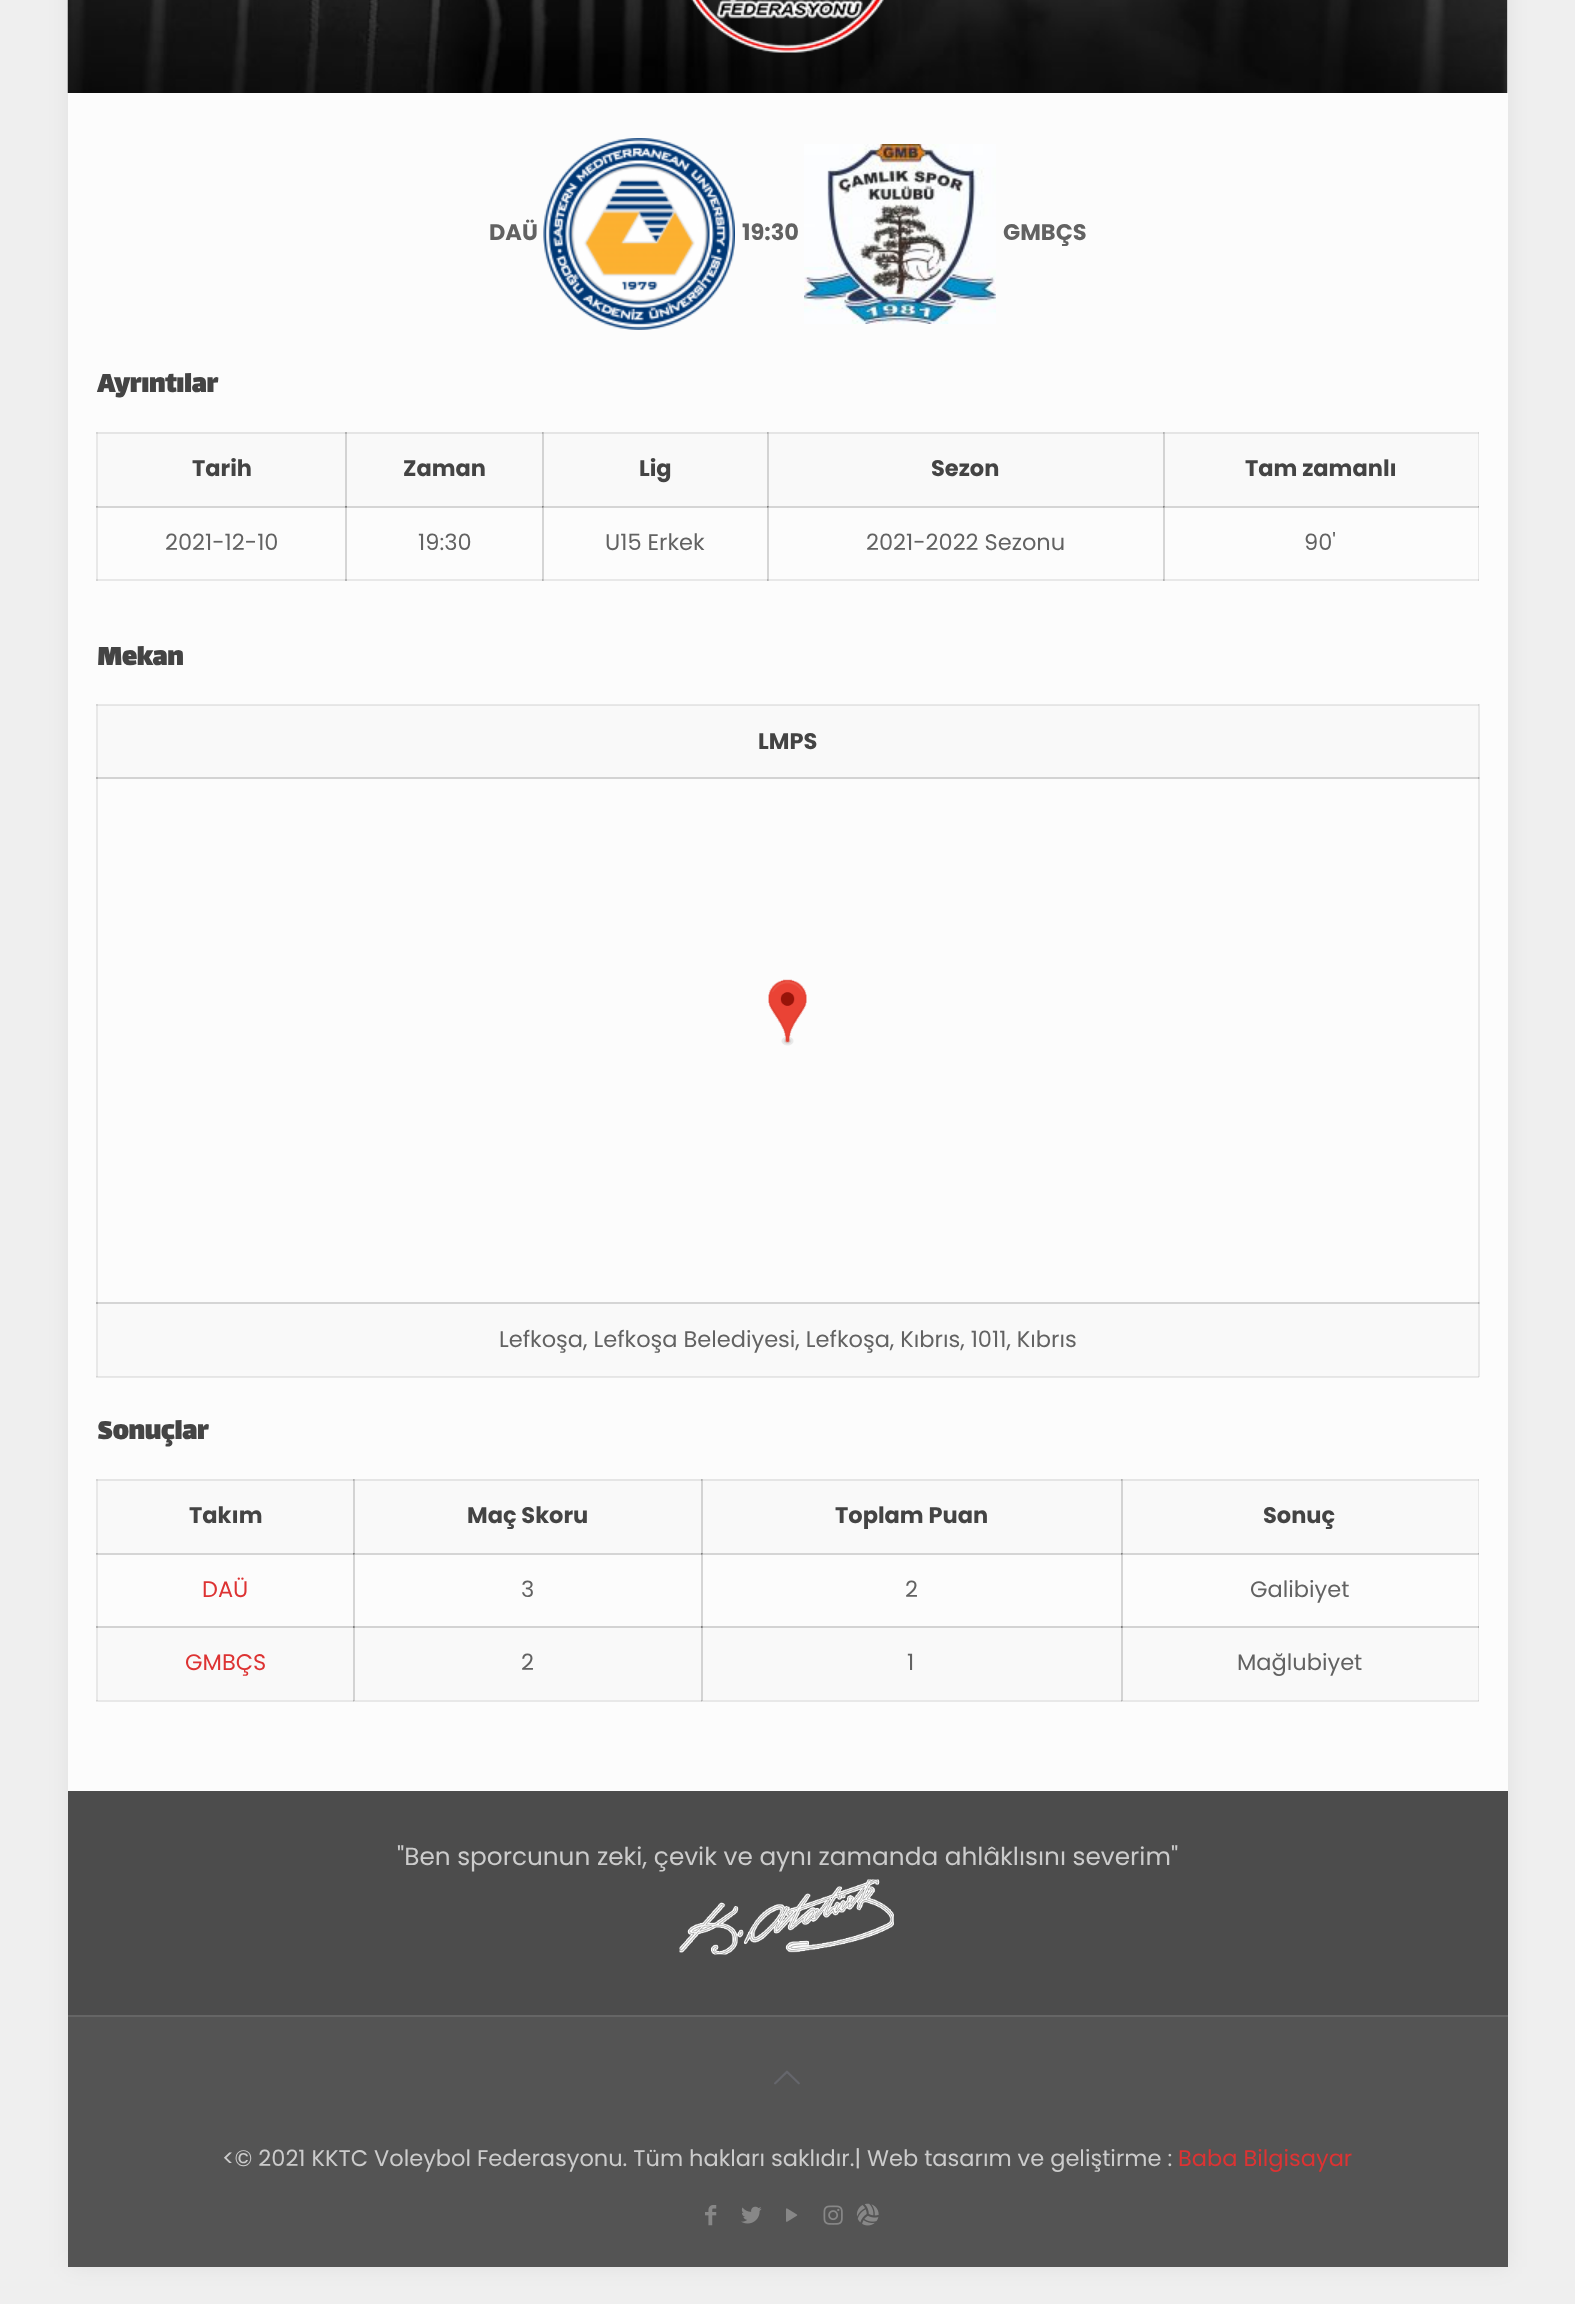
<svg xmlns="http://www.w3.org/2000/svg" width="1575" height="2304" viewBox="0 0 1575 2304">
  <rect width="100%" height="100%" fill="#efefef"/>
  <path d="M68 -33h1440v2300H68z" fill="#0000000f" filter="blur(11px)"/>
  <path d="M68 93h1440v1698H68z" fill="#fcfcfc"/>
  <path d="M96 1479h2v222H96z" fill="#e8e8e8"/>
  <path d="M96 1479h2v2H96z" fill="#d5d5d5"/>
  <path d="M1478 1479h1v149H1478z" fill="#e8e8e8"/>
  <path d="M1478 1479h1v2H1478z" fill="#d5d5d5"/>
  <path d="M96 1553h258v2H96z" fill="#d5d5d5"/>
  <path d="M96 1554h2v1H96z" fill="#c4c4c4"/>
  <path d="M96 1553h2v1H96z" fill="#b4b4b4"/>
  <path d="M353 1553h2v75H353z" fill="#d5d5d5"/>
  <path d="M353 1553h349v2H353z" fill="#d5d5d5"/>
  <path d="M353 1554h2v1H353z" fill="#b4b4b4"/>
  <path d="M353 1553h2v1H353z" fill="#999"/>
  <path d="M353 1553h1v2H353z" fill="#999"/>
  <path d="M353 1553h1v1H353z" fill="#828282"/>
  <path d="M701 1553h2v75H701z" fill="#d5d5d5"/>
  <path d="M701 1553h421v2H701z" fill="#d5d5d5"/>
  <path d="M701 1554h2v1H701z" fill="#b4b4b4"/>
  <path d="M701 1553h2v1H701z" fill="#999"/>
  <path d="M701 1553h1v2H701z" fill="#999"/>
  <path d="M701 1553h1v1H701z" fill="#828282"/>
  <path d="M1121 1553h2v75H1121z" fill="#d5d5d5"/>
  <path d="M96 1700h1383v2H96z" fill="#e8e8e8"/>
  <path d="M96 1700h2v1H96z" fill="#d5d5d5"/>
  <path d="M96 1626h2v2H96z" fill="#b4b4b4"/>
  <path d="M353 1700h1v2H353z" fill="#d5d5d5"/>
  <path d="M353 1700h2v1H353z" fill="#c4c4c4"/>
  <path d="M353 1700h1v1H353z" fill="#b4b4b4"/>
  <path d="M701 1700h1v2H701z" fill="#d5d5d5"/>
  <path d="M701 1700h2v1H701z" fill="#c4c4c4"/>
  <path d="M701 1700h1v1H701z" fill="#b4b4b4"/>
  <path d="M1121 1700h1v2H1121z" fill="#d5d5d5"/>
  <path d="M1121 1700h2v1H1121z" fill="#c4c4c4"/>
  <path d="M1121 1700h1v1H1121z" fill="#b4b4b4"/>
  <path d="M1478 1626h1v75H1478z" fill="#e8e8e8"/>
  <path d="M1478 1700h1v1H1478z" fill="#d5d5d5"/>
  <path d="M1478 1626h1v2H1478z" fill="#b4b4b4"/>
  <path d="M96 432h2v149H96z" fill="#e8e8e8"/>
  <path d="M96 432h2v2H96z" fill="#d5d5d5"/>
  <path d="M1478 432h1v75H1478z" fill="#e8e8e8"/>
  <path d="M1478 432h1v2H1478z" fill="#d5d5d5"/>
  <path d="M96 579h251v2H96z" fill="#e8e8e8"/>
  <path d="M96 579h2v2H96z" fill="#d5d5d5"/>
  <path d="M96 506h251v2H96z" fill="#d5d5d5"/>
  <path d="M96 507h2v1H96z" fill="#c4c4c4"/>
  <path d="M96 506h2v1H96z" fill="#b4b4b4"/>
  <path d="M345 506h2v75H345z" fill="#d5d5d5"/>
  <path d="M345 579h198v2H345z" fill="#e8e8e8"/>
  <path d="M345 579h2v2H345z" fill="#b4b4b4"/>
  <path d="M345 506h198v2H345z" fill="#d5d5d5"/>
  <path d="M345 507h2v1H345z" fill="#999"/>
  <path d="M345 506h2v1H345z" fill="#828282"/>
  <path d="M542 506h2v75H542z" fill="#d5d5d5"/>
  <path d="M542 579h226v2H542z" fill="#e8e8e8"/>
  <path d="M542 579h2v2H542z" fill="#c4c4c4"/>
  <path d="M542 579h1v2H542z" fill="#b4b4b4"/>
  <path d="M542 506h226v2H542z" fill="#d5d5d5"/>
  <path d="M542 507h2v1H542z" fill="#b4b4b4"/>
  <path d="M542 506h2v1H542z" fill="#999"/>
  <path d="M542 506h1v2H542z" fill="#999"/>
  <path d="M542 506h1v1H542z" fill="#828282"/>
  <path d="M767 506h2v75H767z" fill="#d5d5d5"/>
  <path d="M767 579h397v2H767z" fill="#e8e8e8"/>
  <path d="M767 579h2v2H767z" fill="#c4c4c4"/>
  <path d="M767 579h1v2H767z" fill="#b4b4b4"/>
  <path d="M767 506h397v2H767z" fill="#d5d5d5"/>
  <path d="M767 507h2v1H767z" fill="#b4b4b4"/>
  <path d="M767 506h2v1H767z" fill="#999"/>
  <path d="M767 506h1v2H767z" fill="#999"/>
  <path d="M767 506h1v1H767z" fill="#828282"/>
  <path d="M1163 506h2v75H1163z" fill="#d5d5d5"/>
  <path d="M1163 579h316v2H1163z" fill="#e8e8e8"/>
  <path d="M1163 579h2v2H1163z" fill="#c4c4c4"/>
  <path d="M1163 579h1v2H1163z" fill="#b4b4b4"/>
  <path d="M1478 506h1v75H1478z" fill="#e8e8e8"/>
  <path d="M1478 579h1v2H1478z" fill="#d5d5d5"/>
  <path d="M96 704h2v673H96z" fill="#e8e8e8"/>
  <path d="M1478 704h2v673H1478z" fill="#e8e8e8"/>
  <path d="M96 704h1383v1H96z" fill="#e8e8e8"/>
  <path d="M96 704h2v2H96z" fill="#d5d5d5"/>
  <path d="M1478 704h1v2H1478z" fill="#d5d5d5"/>
  <path d="M1478 777h2v2H1478z" fill="#d5d5d5"/>
  <path d="M96 777h2v2H96z" fill="#b4b4b4"/>
  <path d="M1478 777h1v2H1478z" fill="#b4b4b4"/>
  <path d="M96 1377h1383v1H96z" fill="#e8e8e8"/>
  <path d="M96 1376h2v1H96z" fill="#d5d5d5"/>
  <path d="M96 1302h1384v2H96z" fill="#d5d5d5"/>
  <path d="M1478 1376h1v1H1478z" fill="#d5d5d5"/>
  <path d="M1507 0h1v93H1507z" fill="#fff"/>
  <image x="67" y="0" width="1441" height="93" href="img/1.png"/>
  <image x="691" y="0" width="193" height="53" href="img/2.png"/>
  <image x="543" y="138" width="192" height="192" href="img/3.png"/>
  <image x="804" y="144" width="192" height="180" href="img/4.png"/>
  <path d="M98 434h247v72H98z" fill="#f9f9f9"/>
  <path d="M98 432h445v2H98z" fill="#e5e5e5"/>
  <path d="M345 432h2v74H345z" fill="#d3d3d3"/>
  <path d="M345 432h2v2H345z" fill="#b2b2b2"/>
  <path d="M347 434h195v72H347z" fill="#f9f9f9"/>
  <path d="M542 432h2v74H542z" fill="#d3d3d3"/>
  <path d="M542 432h1v2H542z" fill="#b2b2b2"/>
  <path d="M544 434h223v72H544z" fill="#f9f9f9"/>
  <path d="M543 432h225v2H543z" fill="#e5e5e5"/>
  <path d="M543 432h1v2H543z" fill="#c2c2c2"/>
  <path d="M767 432h2v74H767z" fill="#d3d3d3"/>
  <path d="M767 432h1v2H767z" fill="#b2b2b2"/>
  <path d="M769 434h394v72H769z" fill="#f9f9f9"/>
  <path d="M768 432h395v2H768z" fill="#e5e5e5"/>
  <path d="M768 432h1v2H768z" fill="#c2c2c2"/>
  <path d="M1165 434h313v72H1165z" fill="#f9f9f9"/>
  <path d="M1163 432h2v74H1163z" fill="#d3d3d3"/>
  <path d="M1163 432h315v2H1163z" fill="#e5e5e5"/>
  <path d="M1163 432h2v2H1163z" fill="#c2c2c2"/>
  <path d="M1163 432h1v2H1163z" fill="#b2b2b2"/>
  <path d="M1163 506h316v2H1163z" fill="#d5d5d5"/>
  <path d="M1163 507h2v1H1163z" fill="#b4b4b4"/>
  <path d="M1163 506h2v1H1163z" fill="#999"/>
  <path d="M1163 506h1v2H1163z" fill="#999"/>
  <path d="M1163 506h1v1H1163z" fill="#828282"/>
  <path d="M1478 506h1v2H1478z" fill="#c4c4c4"/>
  <path d="M1478 506h1v1H1478z" fill="#b4b4b4"/>
  <path d="M98 706h1380v71H98z" fill="#f9f9f9"/>
  <path d="M98 705h1380v1H98z" fill="#e5e5e5"/>
  <path d="M98 777h1380v2H98z" fill="#d3d3d3"/>
  <image x="768" y="979" width="39" height="67" href="img/5.png"/>
  <path d="M98 1304h1380v72H98z" fill="#f9f9f9"/>
  <path d="M98 1376h1380v1H98z" fill="#e5e5e5"/>
  <path d="M96 1302h2v2H96z" fill="#b4b4b4"/>
  <path d="M1478 1302h1v2H1478z" fill="#b4b4b4"/>
  <path d="M98 1481h255v72H98z" fill="#f9f9f9"/>
  <path d="M98 1479h256v2H98z" fill="#e5e5e5"/>
  <path d="M353 1479h2v74H353z" fill="#d3d3d3"/>
  <path d="M353 1479h1v2H353z" fill="#b2b2b2"/>
  <path d="M355 1481h346v72H355z" fill="#f9f9f9"/>
  <path d="M354 1479h347v2H354z" fill="#e5e5e5"/>
  <path d="M354 1479h1v2H354z" fill="#c2c2c2"/>
  <path d="M703 1481h418v72H703z" fill="#f9f9f9"/>
  <path d="M701 1479h2v74H701z" fill="#d3d3d3"/>
  <path d="M701 1479h420v2H701z" fill="#e5e5e5"/>
  <path d="M701 1479h2v2H701z" fill="#c2c2c2"/>
  <path d="M701 1479h1v2H701z" fill="#b2b2b2"/>
  <path d="M1123 1481h355v72H1123z" fill="#f9f9f9"/>
  <path d="M1121 1479h2v74H1121z" fill="#d3d3d3"/>
  <path d="M1121 1479h357v2H1121z" fill="#e5e5e5"/>
  <path d="M1121 1479h2v2H1121z" fill="#c2c2c2"/>
  <path d="M1121 1479h1v2H1121z" fill="#b2b2b2"/>
  <path d="M1121 1553h358v2H1121z" fill="#d5d5d5"/>
  <path d="M1121 1554h2v1H1121z" fill="#b4b4b4"/>
  <path d="M1121 1553h2v1H1121z" fill="#999"/>
  <path d="M1121 1553h1v2H1121z" fill="#999"/>
  <path d="M1121 1553h1v1H1121z" fill="#828282"/>
  <path d="M1478 1553h1v2H1478z" fill="#c4c4c4"/>
  <path d="M1478 1553h1v1H1478z" fill="#b4b4b4"/>
  <path d="M98 1628h255v72H98z" fill="#f9f9f9"/>
  <path d="M98 1626h256v2H98z" fill="#d3d3d3"/>
  <path d="M353 1626h2v74H353z" fill="#d3d3d3"/>
  <path d="M353 1626h1v2H353z" fill="#808080"/>
  <path d="M355 1628h346v72H355z" fill="#f9f9f9"/>
  <path d="M354 1626h347v2H354z" fill="#d3d3d3"/>
  <path d="M354 1626h1v2H354z" fill="#979797"/>
  <path d="M703 1628h418v72H703z" fill="#f9f9f9"/>
  <path d="M701 1626h2v74H701z" fill="#d3d3d3"/>
  <path d="M701 1626h420v2H701z" fill="#d3d3d3"/>
  <path d="M701 1626h2v2H701z" fill="#979797"/>
  <path d="M701 1626h1v2H701z" fill="#808080"/>
  <path d="M1123 1628h355v72H1123z" fill="#f9f9f9"/>
  <path d="M1121 1626h2v74H1121z" fill="#d3d3d3"/>
  <path d="M1121 1626h357v2H1121z" fill="#d3d3d3"/>
  <path d="M1121 1626h2v2H1121z" fill="#979797"/>
  <path d="M1121 1626h1v2H1121z" fill="#808080"/>
  <path d="M68 2017h1440v250H68z" fill="#545454"/>
  <path d="M68 1791h1440v224H68z" fill="#4c4c4c"/>
  <image x="679" y="1879" width="215" height="76" href="img/6.png"/>
  <path d="M68 2015h1440v2H68z" fill="#656565"/>
  <image x="774" y="2070" width="26" height="15" href="img/7.png"/>
  <image x="705" y="2205" width="12" height="21" href="img/8.png"/>
  <image x="741" y="2206" width="21" height="18" href="img/9.png"/>
  <image x="786" y="2208" width="12" height="14" href="img/10.png"/>
  <image x="823" y="2205" width="20" height="20" href="img/11.png"/>
  <image x="856" y="2203" width="23" height="23" href="img/12.png"/>
  <g font-family="Poppins" font-size="22.5" font-weight="bold" fill="#626262">
    <text x="489" y="240">DAÜ</text>
    <text x="742" y="240">19:30</text>
    <text x="1003" y="240">GMBÇS</text>
  </g>
  <text x="97" y="392" font-family="Lalezar" font-size="30" font-weight="bold" fill="#444">Ayrıntılar</text>
  <g font-family="Poppins" font-size="22.5" font-weight="bold" fill="#444">
    <text x="192" y="476">Tarih</text>
    <text x="403" y="476">Zaman</text>
    <text x="639" y="476">Lig</text>
    <text x="931" y="476">Sezon</text>
    <text x="1245" y="476">Tam zamanlı</text>
  </g>
  <g font-family="Poppins" font-size="22.5" fill="#626262">
    <text x="165" y="550">2021-12-10</text>
    <text x="418" y="550">19:30</text>
    <text x="605" y="550">U15 Erkek</text>
    <text x="866" y="550">2021-2022 Sezonu</text>
    <text x="1304" y="550">90'</text>
  </g>
  <text x="97" y="665" font-family="Lalezar" font-size="30" font-weight="bold" fill="#444">Mekan</text>
  <text x="758" y="749" font-family="Poppins" font-size="22.5" font-weight="bold" fill="#444">LMPS</text>
  <text x="499" y="1347" font-family="Poppins" font-size="22.5" fill="#626262">Lefkoşa, Lefkoşa Belediyesi, Lefkoşa, Kıbrıs, 1011, Kıbrıs</text>
  <text x="97" y="1439" font-family="Lalezar" font-size="30" font-weight="bold" fill="#444">Sonuçlar</text>
  <g font-family="Poppins" font-size="22.5" font-weight="bold" fill="#444">
    <text x="189" y="1523">Takım</text>
    <text x="467" y="1523">Maç Skoru</text>
    <text x="835" y="1523">Toplam Puan</text>
    <text x="1263" y="1523">Sonuç</text>
  </g>
  <text x="202" y="1597" font-family="Poppins" font-size="22.5" fill="#d33">DAÜ</text>
  <g font-family="Poppins" font-size="22.5" fill="#626262">
    <text x="521" y="1597">3</text>
    <text x="905" y="1597">2</text>
    <text x="1250" y="1597">Galibiyet</text>
  </g>
  <text x="185" y="1670" font-family="Poppins" font-size="22.5" fill="#d33">GMBÇS</text>
  <g font-family="Poppins" font-size="22.5" fill="#626262">
    <text x="521" y="1670">2</text>
    <text x="907" y="1670">1</text>
    <text x="1237" y="1670">Mağlubiyet</text>
  </g>
  <text x="397" y="1865" font-family="Poppins" font-size="24.75" fill="#ccc">"Ben sporcunun zeki, çevik ve aynı zamanda ahlâklısını severim"</text>
  <text x="222" y="2166" font-family="Poppins" font-size="22.5" fill="#ccc">&lt;© 2021 KKTC Voleybol Federasyonu. Tüm hakları saklıdır.| Web tasarım ve geliştirme :</text>
  <text x="1178" y="2166" font-family="Poppins" font-size="22.5" fill="#d33">Baba Bilgisayar</text>
</svg>
